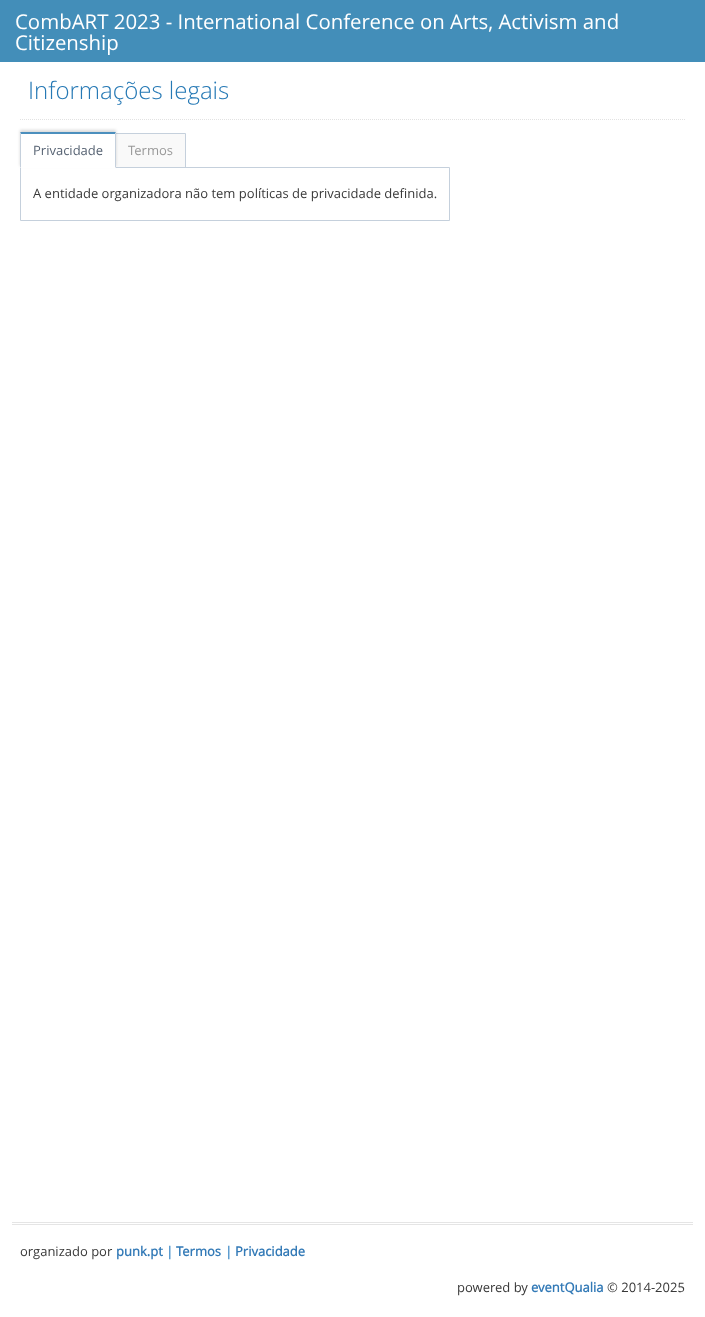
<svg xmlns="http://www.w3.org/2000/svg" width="705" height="1317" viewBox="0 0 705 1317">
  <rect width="100%" height="100%" fill="#fff"/>
  <path d="M0 0h705v62H0z" fill="#438eb9"/>
  <path d="M20 119.5H685" fill="none" stroke="#e2e2e2" stroke-dasharray="1 1"/>
  <path d="M115.5 133.5h70v34H115.5z" fill="#f9f9f9" stroke="#c5d0dc"/>
  <path d="M20.5 167.5h429v53H20.5z" fill="none" stroke="#c5d0dc"/>
  <path d="M20 130h96v36H20z" fill="#00000026" filter="blur(1.5px)"/>
  <path d="M20 132h96v36H20z" fill="#fff"/>
  <path d="M20 132H116L115 134H21Z" fill="#4c8fbd"/>
  <path d="M116 132V168L115 167V134Z" fill="#c5d0dc"/>
  <path d="M20 168V132L21 134V167Z" fill="#c5d0dc"/>
  <path d="M12 1222h681v1H12z" fill="#e5e5e5"/>
  <path d="M12 1224h681v1H12z" fill="#e5e5e5"/>
  <g font-family="Open Sans" font-size="20.4" fill="#fff">
    <text x="15" y="29">CombART 2023 - International Conference on Arts, Activism and</text>
    <text x="15" y="50">Citizenship</text>
  </g>
  <text x="28" y="99" font-family="Open Sans" font-size="24" font-weight="300" fill="#2679b5">Informações legais</text>
  <text x="33" y="155" font-family="Open Sans" font-size="13" fill="#576373">Privacidade</text>
  <text x="128" y="155" font-family="Open Sans" font-size="13" fill="#999">Termos</text>
  <g font-family="Open Sans" font-size="13" fill="#393939">
    <text x="33" y="198">A entidade organizadora não tem políticas de privacidade definida.</text>
    <text x="20" y="1256">organizado por</text>
  </g>
  <text x="116" y="1256" font-family="Open Sans" font-size="13" font-weight="bold" fill="#337ab7">punk.pt</text>
  <text x="166" y="1256" font-family="Open Sans" font-size="13" font-weight="bold" fill="#478fca">|</text>
  <text x="176" y="1256" font-family="Open Sans" font-size="13" font-weight="bold" fill="#337ab7">Termos</text>
  <text x="225" y="1256" font-family="Open Sans" font-size="13" font-weight="bold" fill="#478fca">|</text>
  <text x="235" y="1256" font-family="Open Sans" font-size="13" font-weight="bold" fill="#337ab7">Privacidade</text>
  <text x="457" y="1292" font-family="Open Sans" font-size="13" fill="#393939">powered by</text>
  <text x="531" y="1292" font-family="Open Sans" font-size="13" font-weight="bold" fill="#337ab7">eventQualia</text>
  <text x="607" y="1292" font-family="Open Sans" font-size="13" fill="#393939">© 2014-2025</text>
</svg>
